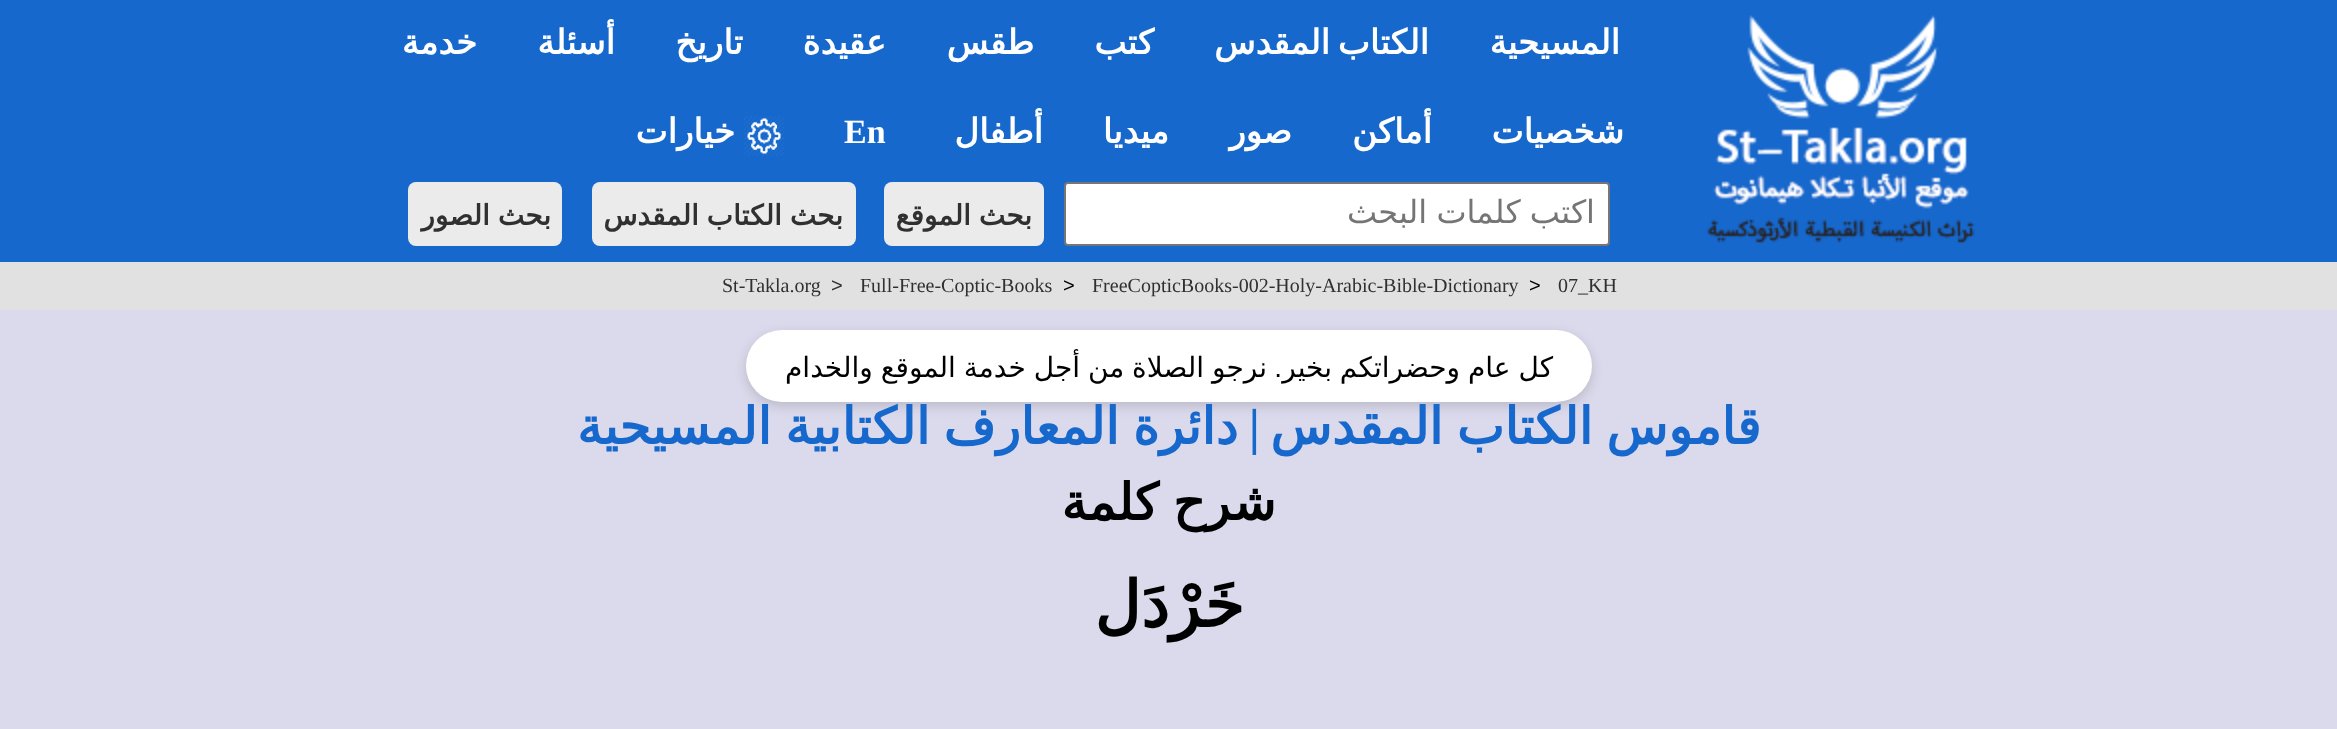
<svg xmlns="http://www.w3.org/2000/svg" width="2337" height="729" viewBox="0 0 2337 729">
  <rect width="100%" height="100%" fill="#dbdaec"/>
  <path d="M0 0h2337v262H0z" fill="#1668cd"/>
  <image x="1707" y="15" width="268" height="229" href="img/1.png"/>
  <image x="744" y="116" width="40" height="40" href="img/2.png"/>
  <rect x="1065" y="183" width="544" height="62" rx="3" fill="#fff" stroke="#767676" stroke-width="2"/>
  <rect x="884" y="182" width="160" height="64" rx="8" fill="#ebebeb"/>
  <rect x="592" y="182" width="264" height="64" rx="8" fill="#ebebeb"/>
  <rect x="408" y="182" width="154" height="64" rx="8" fill="#ebebeb"/>
  <path d="M0 262h2337v48H0z" fill="#e1e1e1"/>
  <rect x="746" y="334" width="846" height="72" rx="36" fill="#00000026" filter="blur(6px)"/>
  <rect x="746" y="330" width="846" height="72" rx="36" fill="#fff"/>
  <g font-family="DejaVu Sans" font-size="34" font-weight="bold" direction="rtl" fill="#fff">
    <text x="1620" y="54">المسيحية</text>
    <text x="1429" y="54">الكتاب</text>
    <text x="1330" y="54">المقدس</text>
    <text x="1154" y="54">كتب</text>
    <text x="1034" y="54">طقس</text>
    <text x="886" y="54">عقيدة</text>
    <text x="743" y="54">تاريخ</text>
    <text x="615" y="54">أسئلة</text>
    <text x="477" y="54">خدمة</text>
    <text x="1624" y="143">شخصيات</text>
    <text x="1432" y="143">أماكن</text>
    <text x="1292" y="143">صور</text>
    <text x="1169" y="143">ميديا</text>
    <text x="1043" y="143">أطفال</text>
  </g>
  <text x="844" y="143" font-family="Liberation Serif" font-size="34" font-weight="bold" fill="#fff">En</text>
  <text x="735" y="143" font-family="DejaVu Sans" font-size="34" font-weight="bold" direction="rtl" fill="#fff">خيارات</text>
  <text x="1595" y="223" word-spacing="-1" font-family="DejaVu Sans" font-size="32" direction="rtl" fill="#757575">اكتب كلمات البحث</text>
  <g font-family="DejaVu Sans" font-size="28" font-weight="bold" direction="rtl" fill="#303030">
    <text x="1032" y="225" word-spacing="-1">بحث الموقع</text>
    <text x="843" y="225" word-spacing="-1">بحث الكتاب المقدس</text>
    <text x="551" y="225" word-spacing="-1">بحث الصور</text>
  </g>
  <text x="1558" y="292" font-family="Liberation Serif" font-size="20" fill="#303030">07_KH</text>
  <text x="1529" y="292" font-family="Liberation Sans" font-size="20" fill="#000">&gt;</text>
  <text x="1092" y="292" font-family="Liberation Serif" font-size="20" fill="#303030">FreeCopticBooks-002-Holy-Arabic-Bible-Dictionary</text>
  <text x="1063" y="292" font-family="Liberation Sans" font-size="20" fill="#000">&gt;</text>
  <text x="860" y="292" font-family="Liberation Serif" font-size="20" fill="#303030">Full-Free-Coptic-Books</text>
  <text x="831" y="292" font-family="Liberation Sans" font-size="20" fill="#303030">&gt;</text>
  <text x="722" y="292" font-family="Liberation Serif" font-size="20" fill="#303030">St-Takla.org</text>
  <text x="1553" y="377" word-spacing="-1" font-family="DejaVu Sans" font-size="28" direction="rtl" fill="#000">كل عام وحضراتكم بخير</text>
  <text x="1282" y="377" font-family="Liberation Sans" font-size="28" direction="rtl" fill="#000">.</text>
  <text x="1267" y="377" word-spacing="-1" font-family="DejaVu Sans" font-size="28" direction="rtl" fill="#000">نرجو الصلاة من أجل خدمة الموقع والخدام</text>
  <text x="1761" y="444" word-spacing="-2.5" font-family="DejaVu Sans" font-size="50.7" font-weight="bold" direction="rtl" fill="#1668cd">قاموس الكتاب المقدس</text>
  <text x="1260" y="444" font-family="Liberation Serif" font-size="50.7" font-weight="bold" direction="rtl" fill="#1668cd">|</text>
  <text x="1238" y="444" word-spacing="-2.5" font-family="DejaVu Sans" font-size="50.7" font-weight="bold" direction="rtl" fill="#1668cd">دائرة المعارف الكتابية المسيحية</text>
  <text x="1276" y="520" word-spacing="-2" font-family="DejaVu Sans" font-size="50.7" font-weight="bold" direction="rtl" fill="#000">شرح كلمة</text>
  <text x="1244" y="627" font-family="DejaVu Sans" font-size="64" font-weight="bold" direction="rtl" fill="#000">خَرْدَل</text>
</svg>
